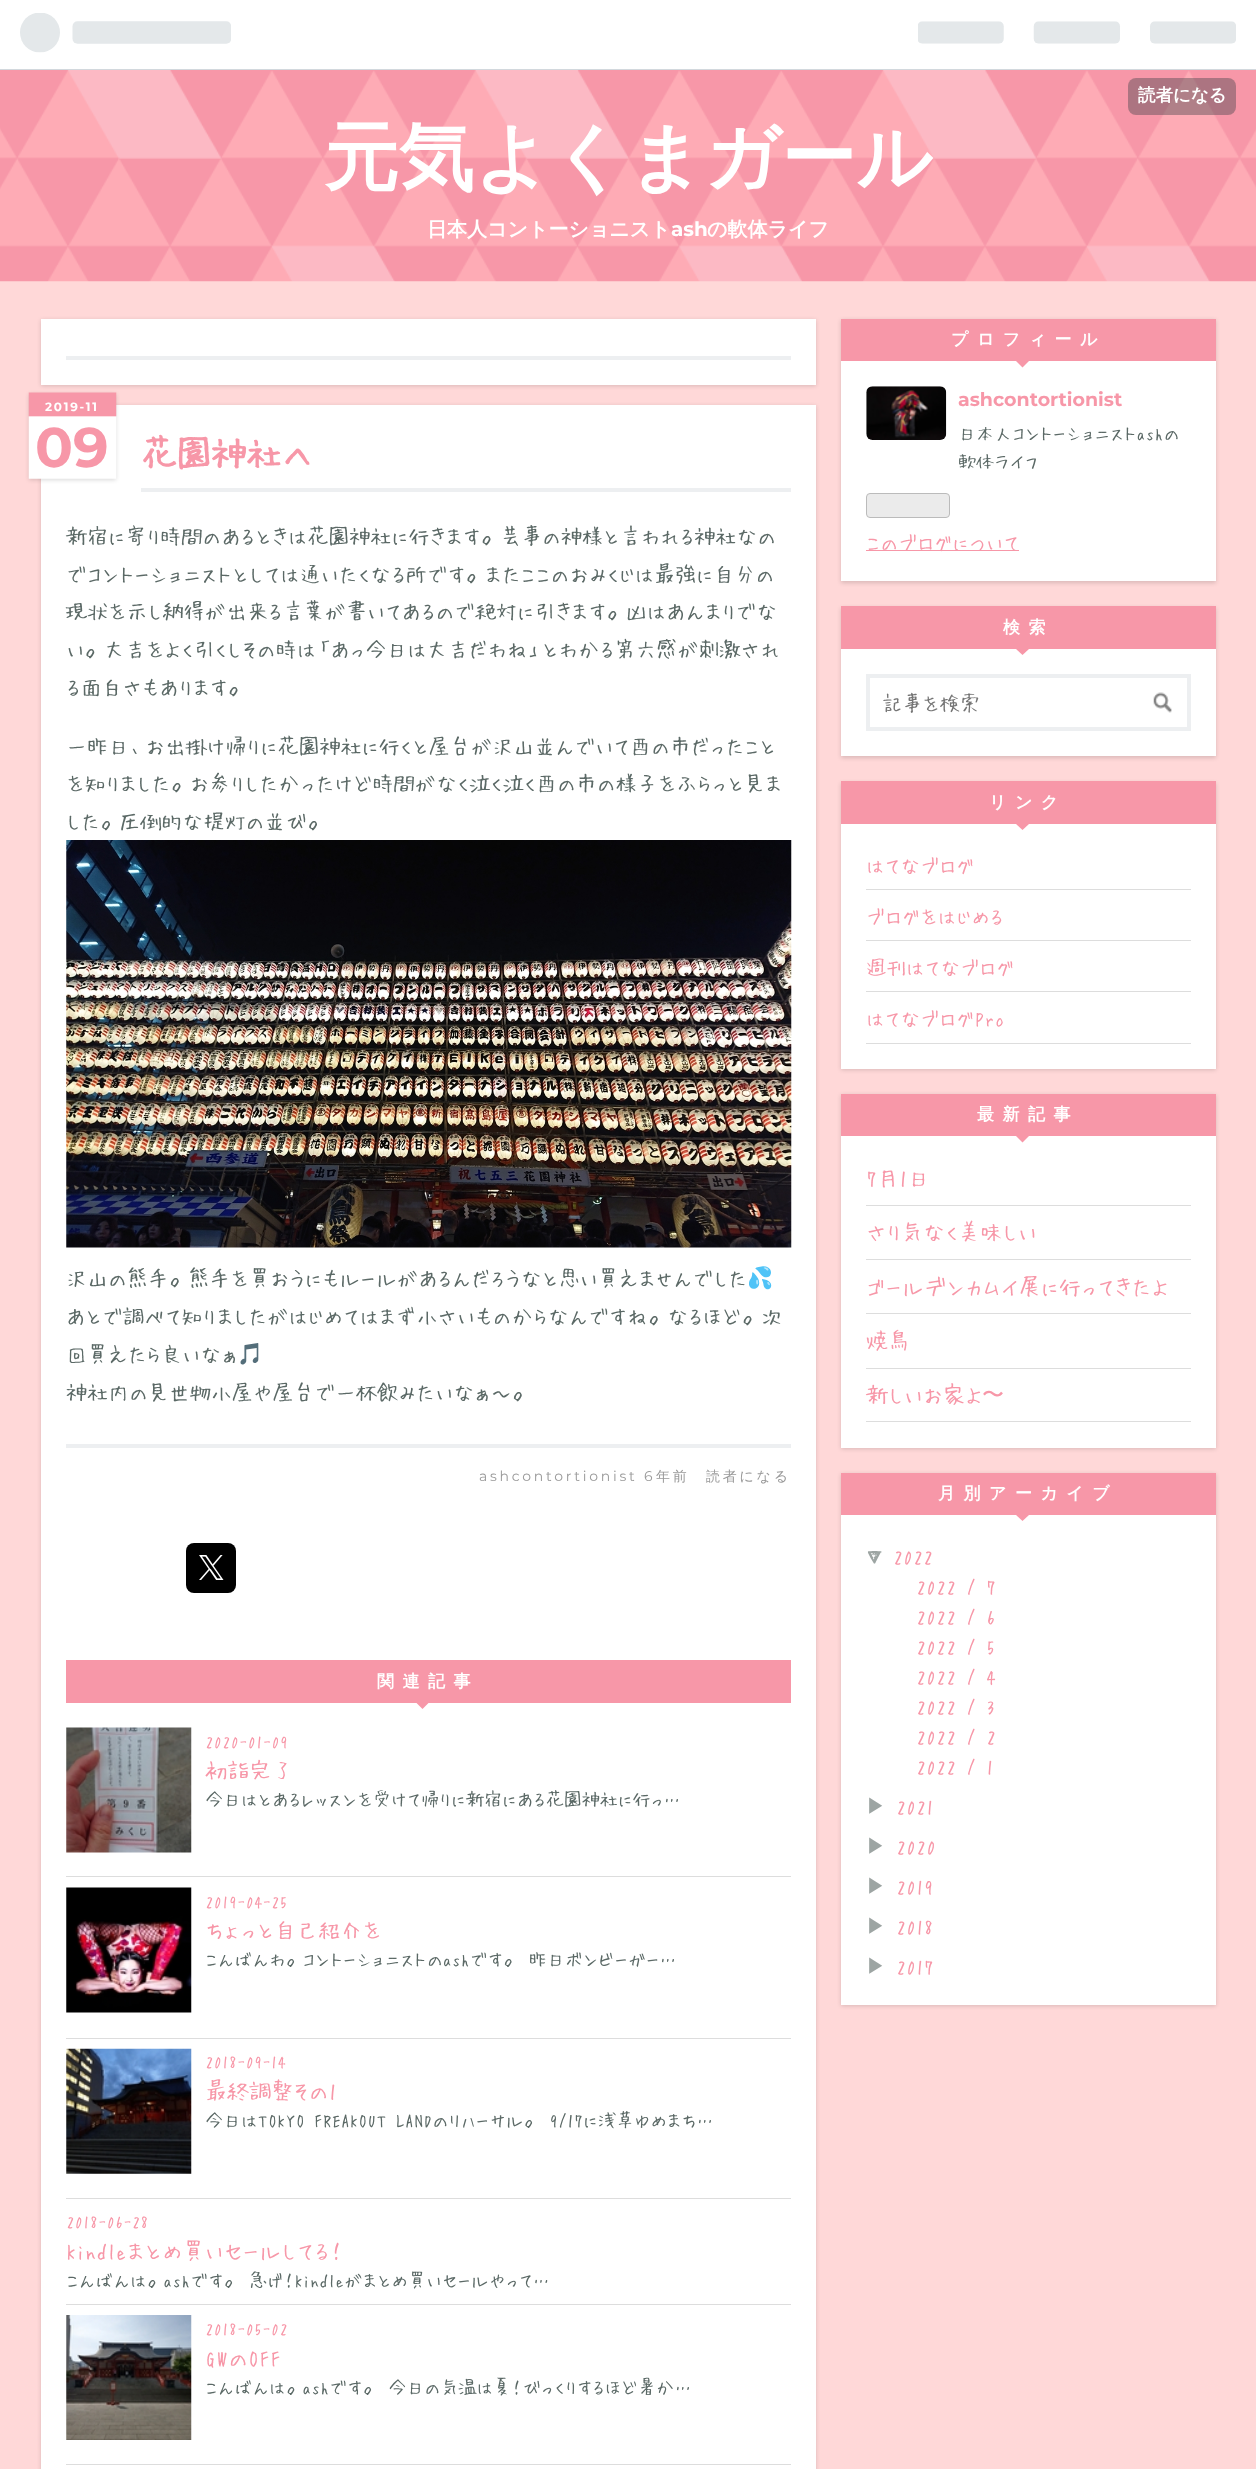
<svg xmlns="http://www.w3.org/2000/svg" width="1256" height="2469" viewBox="0 0 1256 2469">
  <rect width="100%" height="100%" fill="#ffd8d8"/>
  <path d="M0 0h1256v69H0z" fill="#fff"/>
  <path d="M0 69h1256v1H0z" fill="#d2d8dd"/>
  <image x="20" y="13" width="211" height="40" href="img/1.png"/>
  <image x="918" y="21" width="318" height="23" href="img/2.png"/>
  <image x="0" y="70" width="1256" height="212" href="img/3.png"/>
  <rect x="1128" y="78" width="108" height="37" rx="8" fill="#3d424566"/>
  <path d="M41 320h775v66H41z" fill="#00000026" filter="blur(2px)"/>
  <path d="M41 319h775v66H41z" fill="#fff"/>
  <path d="M66 356h725v4H66z" fill="#edeff1"/>
  <path d="M41 406h775v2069H41z" fill="#00000026" filter="blur(2px)"/>
  <path d="M41 405h775v2064H41z" fill="#fff"/>
  <path d="M141 488h650v4H141z" fill="#edeff1"/>
  <path d="M29 394h87v86H29z" fill="#00000026" filter="blur(2px)"/>
  <image x="28" y="392" width="89" height="87" href="img/4.png"/>
  <path d="M66 1444h725v4H66z" fill="#edeff1"/>
  <image x="66" y="840" width="726" height="408" href="img/5.png"/>
  <rect x="186" y="1543" width="50" height="50" rx="8" fill="#000"/>
  <image x="199" y="1555" width="25" height="25" href="img/6.png"/>
  <path d="M66 1660h725v43H66z" fill="#f797a8"/>
  <path d="M416 1702.5H429L422.5 1709Z" fill="#f797a8"/>
  <path d="M66 1876h725v1H66z" fill="#ddd"/>
  <image x="66" y="1727" width="126" height="126" href="img/7.png"/>
  <path d="M66 2038h725v1H66z" fill="#ddd"/>
  <image x="66" y="1887" width="126" height="126" href="img/8.png"/>
  <path d="M66 2198h725v1H66z" fill="#ddd"/>
  <image x="66" y="2048" width="126" height="126" href="img/9.png"/>
  <path d="M66 2304h725v1H66z" fill="#ddd"/>
  <path d="M66 2464h725v1H66z" fill="#ddd"/>
  <image x="66" y="2315" width="126" height="125" href="img/10.png"/>
  <path d="M841 320h375v263H841z" fill="#00000026" filter="blur(2px)"/>
  <path d="M841 319h375v42H841z" fill="#f797a8"/>
  <path d="M841 361h375v220H841z" fill="#fff"/>
  <path d="M1016 361H1029L1022.5 367.5Z" fill="#f797a8"/>
  <image x="866" y="386" width="81" height="54" href="img/11.png"/>
  <rect x="866.5" y="493.5" width="83" height="24" rx="3.5" fill="#ebebeb" stroke="#bbb"/>
  <path d="M866 550h153v1H866z" fill="#f797a8"/>
  <path d="M841 608h375v150H841z" fill="#00000026" filter="blur(2px)"/>
  <path d="M841 606h375v43H841z" fill="#f797a8"/>
  <path d="M841 649h375v107H841z" fill="#fff"/>
  <path d="M1016 649H1029L1022.5 655Z" fill="#f797a8"/>
  <path d="M868 676h321v53H868z" fill="none" stroke="#edeff1" stroke-width="4"/>
  <image x="1153" y="692" width="19" height="21" href="img/12.png"/>
  <path d="M841 783h375v287H841z" fill="#00000026" filter="blur(2px)"/>
  <path d="M841 781h375v43H841z" fill="#f797a8"/>
  <path d="M841 824h375v245H841z" fill="#fff"/>
  <path d="M1016 824H1029L1022.5 830Z" fill="#f797a8"/>
  <path d="M866 889h325v1H866z" fill="#ddd"/>
  <path d="M866 940h325v1H866z" fill="#ddd"/>
  <path d="M866 991h325v1H866z" fill="#ddd"/>
  <path d="M866 1043h325v1H866z" fill="#ddd"/>
  <path d="M841 1095h375v354H841z" fill="#00000026" filter="blur(2px)"/>
  <path d="M841 1094h375v42H841z" fill="#f797a8"/>
  <path d="M841 1136h375v312H841z" fill="#fff"/>
  <path d="M1016 1136H1029L1022.5 1142.5Z" fill="#f797a8"/>
  <path d="M866 1205h325v1H866z" fill="#ddd"/>
  <path d="M866 1259h325v1H866z" fill="#ddd"/>
  <path d="M866 1313h325v1H866z" fill="#ddd"/>
  <path d="M866 1368h325v1H866z" fill="#ddd"/>
  <path d="M866 1421h325v1H866z" fill="#ddd"/>
  <path d="M841 1474h375v532H841z" fill="#00000026" filter="blur(2px)"/>
  <path d="M841 1473h375v42H841z" fill="#f797a8"/>
  <path d="M841 1515h375v490H841z" fill="#fff"/>
  <path d="M1016 1515H1029L1022.5 1521Z" fill="#f797a8"/>
  <text x="1138" y="101" font-family="WenQuanYi Zen Hei" font-size="17.5" font-weight="bold" fill="#fff">読者になる</text>
  <text x="324" y="183" font-family="WenQuanYi Zen Hei" font-size="75" font-weight="bold" fill="#fff">元気よくまガール</text>
  <text x="427" y="236" font-family="WenQuanYi Zen Hei" font-size="20" font-weight="bold" fill="#fff">日本人コントーショニスト</text>
  <text x="671" y="236" font-family="Montserrat" font-size="20" font-weight="bold" fill="#fff">ash</text>
  <text x="707" y="236" font-family="WenQuanYi Zen Hei" font-size="20" font-weight="bold" fill="#fff">の軟体ライフ</text>
  <text x="45" y="411" font-family="Montserrat" font-size="12" font-weight="bold" letter-spacing="1.75" fill="#fff">2019-11</text>
  <text x="35" y="467" font-family="Montserrat" font-size="56" font-weight="bold" fill="#f797a8">09</text>
  <text x="141" y="465" font-family="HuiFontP" font-size="35" font-weight="bold" fill="#f797a8">花園神社へ</text>
  <g font-family="HuiFontP" font-size="21" fill="#5b6966">
    <text x="66" y="543">新宿に寄り時間のあるときは花園神社に行きます。芸事の神様と言われる神社なの</text>
    <text x="66" y="581">でコントーショニストとしては通いたくなる所です。またここのおみくじは最強に自分の</text>
    <text x="66" y="618">現状を示し納得が出来る言葉が書いてあるので絶対に引きます。凶はあんまりでな</text>
    <text x="66" y="656">い。大吉をよく引くしその時は「あっ今日は大吉だわね」とわかる第六感が刺激され</text>
    <text x="66" y="694">る面白さもあります。</text>
    <text x="66" y="753">一昨日、お出掛け帰りに花園神社に行くと屋台が沢山並んでいて酉の市だったこと</text>
    <text x="66" y="790">を知りました。お参りしたかったけど時間がなく泣く泣く酉の市の様子をふらっと見ま</text>
    <text x="66" y="828">した。圧倒的な提灯の並び。</text>
    <text x="66" y="1285">沢山の熊手。熊手を買おうにもルールがあるんだろうなと思い買えませんでした</text>
  </g>
  <text x="747" y="1285" font-family="Noto Color Emoji" font-size="21" fill="#5b6966">💦</text>
  <g font-family="HuiFontP" font-size="21" fill="#5b6966">
    <text x="66" y="1323">あとで調べて知りましたがはじめてはまず小さいものからなんですね。なるほど。次</text>
    <text x="66" y="1361">回買えたら良いなぁ</text>
  </g>
  <text x="237" y="1361" font-family="Noto Color Emoji" font-size="21" fill="#5b6966">🎵</text>
  <text x="66" y="1399" font-family="HuiFontP" font-size="21" fill="#5b6966">神社内の見世物小屋や屋台で一杯飲みたいなぁ～。</text>
  <text x="479" y="1481" font-family="Montserrat" font-size="14" letter-spacing="2.75" fill="#999">ashcontortionist 6</text>
  <g font-family="WenQuanYi Zen Hei" font-size="14" font-weight="500" letter-spacing="2.75" fill="#999">
    <text x="656" y="1481">年前</text>
    <text x="706" y="1481">読者になる</text>
  </g>
  <text x="377" y="1687" font-family="WenQuanYi Zen Hei" font-size="17" font-weight="bold" letter-spacing="8.5" fill="#fff">関連記事</text>
  <text x="205" y="1747" font-family="HuiFontP" font-size="17" fill="#f797a8">2020-01-09</text>
  <text x="205" y="1777" font-family="HuiFontP" font-size="22" fill="#f797a8">初詣完了</text>
  <text x="205" y="1805" font-family="HuiFontP" font-size="18" fill="#5b6966">今日はとあるレッスンを受けて帰りに新宿にある花園神社に行っ…</text>
  <text x="205" y="1907" font-family="HuiFontP" font-size="17" fill="#f797a8">2019-04-25</text>
  <text x="205" y="1937" font-family="HuiFontP" font-size="22" fill="#f797a8">ちょっと自己紹介を</text>
  <text x="205" y="1965" font-family="HuiFontP" font-size="18" fill="#5b6966">こんばんわ。コントーショニストのashです。 昨日ボンビーガー…</text>
  <text x="205" y="2067" font-family="HuiFontP" font-size="17" fill="#f797a8">2018-09-14</text>
  <text x="205" y="2098" font-family="HuiFontP" font-size="22" fill="#f797a8">最終調整その1</text>
  <text x="205" y="2126" font-family="HuiFontP" font-size="18" fill="#5b6966">今日はTOKYO FREAKOUT LANDのリハーサル。 9/17に浅草ゆめまち…</text>
  <text x="66" y="2227" font-family="HuiFontP" font-size="17" fill="#f797a8">2018-06-28</text>
  <text x="66" y="2258" font-family="HuiFontP" font-size="22" fill="#f797a8">Kindleまとめ買いセールしてる！</text>
  <text x="66" y="2286" font-family="HuiFontP" font-size="18" fill="#5b6966">こんばんは。ashです。 急げ！Kindleがまとめ買いセールやって…</text>
  <text x="205" y="2334" font-family="HuiFontP" font-size="17" fill="#f797a8">2018-05-02</text>
  <text x="205" y="2365" font-family="HuiFontP" font-size="22" fill="#f797a8">GWのOFF</text>
  <text x="205" y="2393" font-family="HuiFontP" font-size="18" fill="#5b6966">こんばんは。ashです。 今日の気温は夏！びっくりするほど暑か…</text>
  <text x="951" y="345" font-family="WenQuanYi Zen Hei" font-size="17" font-weight="bold" letter-spacing="8.5" fill="#fff">プロフィール</text>
  <text x="958" y="406" font-family="Montserrat" font-size="19" font-weight="bold" fill="#f797a8">ashcontortionist</text>
  <g font-family="HuiFontP" font-size="18" fill="#5b6966">
    <text x="958" y="439">日本人コントーショニストashの</text>
    <text x="958" y="467">軟体ライフ</text>
  </g>
  <text x="866" y="549" font-family="HuiFontP" font-size="20" fill="#f797a8">このブログについて</text>
  <text x="1003" y="633" font-family="WenQuanYi Zen Hei" font-size="17" font-weight="bold" letter-spacing="8.5" fill="#fff">検索</text>
  <text x="882" y="710" font-family="HuiFontP" font-size="20" fill="#757575">記事を検索</text>
  <text x="989" y="808" font-family="WenQuanYi Zen Hei" font-size="17" font-weight="bold" letter-spacing="8.5" fill="#fff">リンク</text>
  <g font-family="HuiFontP" font-size="20" fill="#f797a8">
    <text x="866" y="872">はてなブログ</text>
    <text x="866" y="923">ブログをはじめる</text>
    <text x="866" y="974">週刊はてなブログ</text>
    <text x="866" y="1025">はてなブログPro</text>
  </g>
  <text x="977" y="1120" font-family="WenQuanYi Zen Hei" font-size="17" font-weight="bold" letter-spacing="8.5" fill="#fff">最新記事</text>
  <g font-family="HuiFontP" font-size="22" fill="#f797a8">
    <text x="866" y="1185">7月1日</text>
    <text x="866" y="1239">さり気なく美味しい</text>
    <text x="866" y="1294">ゴールデンカムイ展に行ってきたよ</text>
    <text x="866" y="1348">焼鳥</text>
    <text x="866" y="1402">新しいお家よ</text>
  </g>
  <text x="982" y="1402" font-family="WenQuanYi Zen Hei" font-size="22" font-weight="500" fill="#f797a8">〜</text>
  <text x="938" y="1499" font-family="WenQuanYi Zen Hei" font-size="17" font-weight="bold" letter-spacing="8.5" fill="#fff">月別アーカイブ</text>
  <text x="866" y="1563" font-family="HuiFontP" font-size="20" fill="#9da5a3">▼</text>
  <g font-family="HuiFontP" font-size="20" fill="#f797a8">
    <text x="893" y="1563">2022</text>
    <text x="916" y="1593">2022 / 7</text>
    <text x="916" y="1623">2022 / 6</text>
    <text x="916" y="1653">2022 / 5</text>
    <text x="916" y="1683">2022 / 4</text>
    <text x="916" y="1713">2022 / 3</text>
    <text x="916" y="1743">2022 / 2</text>
    <text x="916" y="1773">2022 / 1</text>
  </g>
  <text x="866" y="1813" font-family="WenQuanYi Zen Hei" font-size="20" font-weight="500" fill="#9da5a3">▶</text>
  <text x="896" y="1813" font-family="HuiFontP" font-size="20" fill="#f797a8">2021</text>
  <text x="866" y="1853" font-family="WenQuanYi Zen Hei" font-size="20" font-weight="500" fill="#9da5a3">▶</text>
  <text x="896" y="1853" font-family="HuiFontP" font-size="20" fill="#f797a8">2020</text>
  <text x="866" y="1893" font-family="WenQuanYi Zen Hei" font-size="20" font-weight="500" fill="#9da5a3">▶</text>
  <text x="896" y="1893" font-family="HuiFontP" font-size="20" fill="#f797a8">2019</text>
  <text x="866" y="1933" font-family="WenQuanYi Zen Hei" font-size="20" font-weight="500" fill="#9da5a3">▶</text>
  <text x="896" y="1933" font-family="HuiFontP" font-size="20" fill="#f797a8">2018</text>
  <text x="866" y="1973" font-family="WenQuanYi Zen Hei" font-size="20" font-weight="500" fill="#9da5a3">▶</text>
  <text x="896" y="1973" font-family="HuiFontP" font-size="20" fill="#f797a8">2017</text>
</svg>
